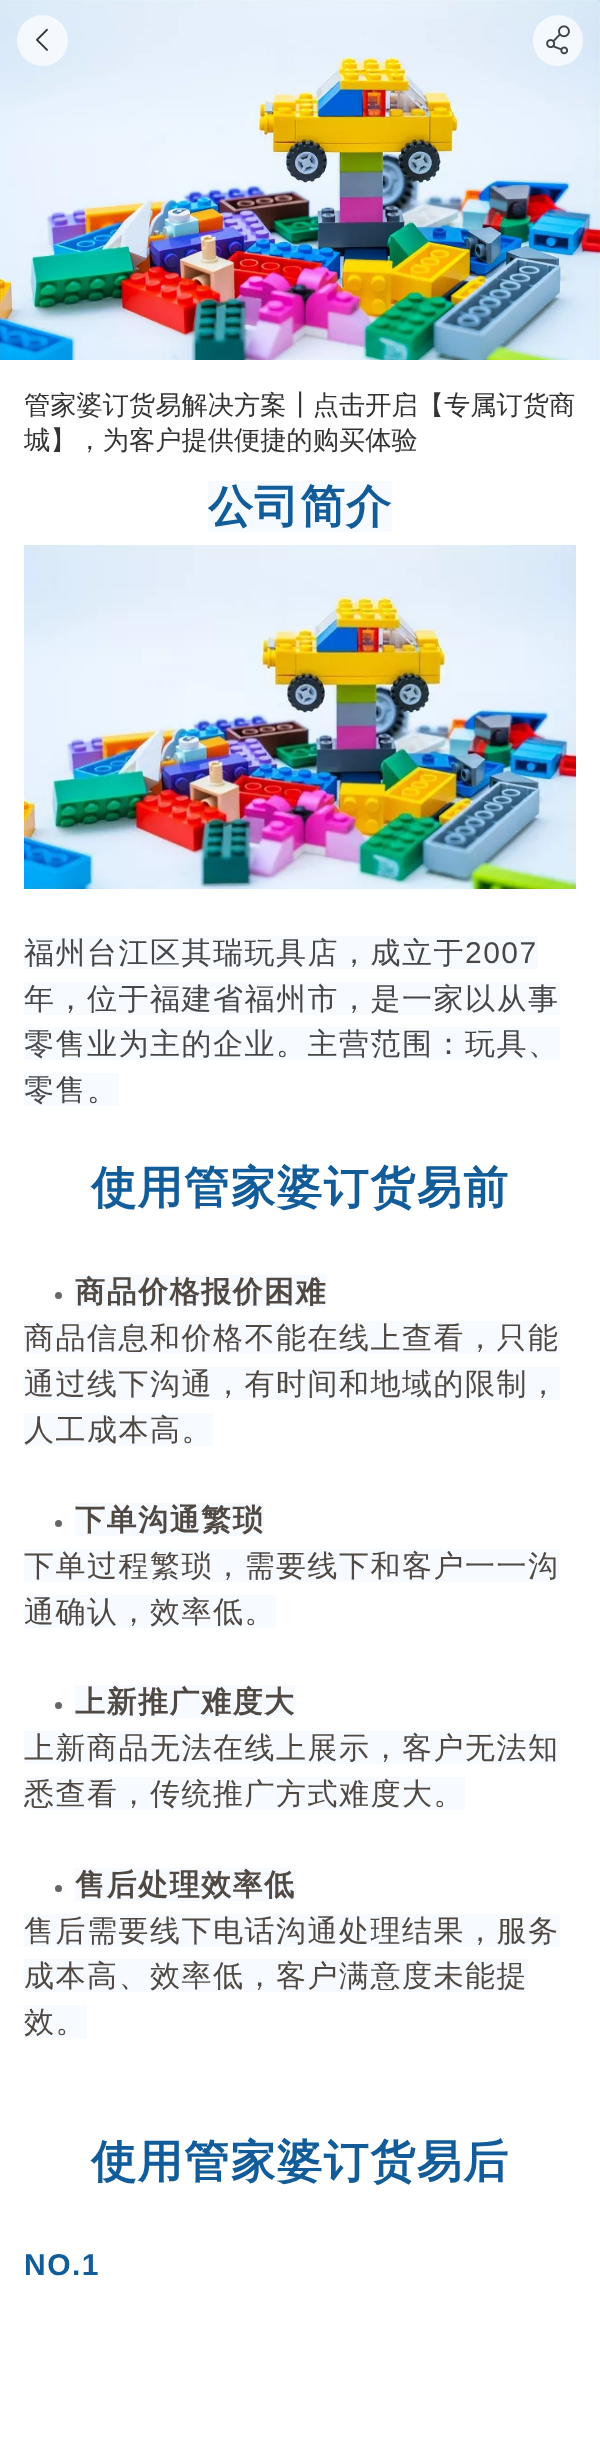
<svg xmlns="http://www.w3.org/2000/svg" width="600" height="2461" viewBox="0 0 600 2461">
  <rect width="100%" height="100%" fill="#fff"/>
  <image x="0" y="0" width="600" height="360" href="img/3.png"/>
  <circle cx="42.5" cy="40.5" r="25.5" fill="#ffffffb3"/>
  <image x="36" y="28" width="12" height="23" href="img/1.png"/>
  <rect x="533" y="15" width="50" height="51" rx="25" fill="#ffffffb3"/>
  <image x="546" y="25" width="24" height="30" href="img/2.png"/>
  <path d="M208 481h184v51H208z" fill="#f7faff"/>
  <image x="24" y="545" width="552" height="344" href="img/4.png"/>
  <path d="M24 936h514v33H24z" fill="#f7faff"/>
  <path d="M24 982h536v33H24z" fill="#f7faff"/>
  <path d="M24 1027h536v33H24z" fill="#f7faff"/>
  <path d="M24 1073h95v33H24z" fill="#f7faff"/>
  <circle cx="58.5" cy="1295.5" r="3.5" fill="#666"/>
  <path d="M75 1275h252v33H75z" fill="#f7faff"/>
  <path d="M24 1321h536v33H24z" fill="#f7faff"/>
  <path d="M24 1367h536v33H24z" fill="#f7faff"/>
  <path d="M24 1413h189v33H24z" fill="#f7faff"/>
  <circle cx="58.5" cy="1523.5" r="3.5" fill="#666"/>
  <path d="M75 1503h189v33H75z" fill="#f7faff"/>
  <path d="M24 1549h536v33H24z" fill="#f7faff"/>
  <path d="M24 1595h252v33H24z" fill="#f7faff"/>
  <circle cx="58.5" cy="1705.5" r="3.5" fill="#666"/>
  <path d="M75 1685h221v33H75z" fill="#f7faff"/>
  <path d="M24 1731h536v33H24z" fill="#f7faff"/>
  <path d="M24 1777h441v33H24z" fill="#f7faff"/>
  <circle cx="58.5" cy="1888.5" r="3.5" fill="#666"/>
  <path d="M75 1868h221v33H75z" fill="#f7faff"/>
  <path d="M24 1914h536v33H24z" fill="#f7faff"/>
  <path d="M24 1959h504v33H24z" fill="#f7faff"/>
  <path d="M24 2005h63v33H24z" fill="#f7faff"/>
  <g font-family="WenQuanYi Zen Hei" font-size="26.25" font-weight="500" fill="#333">
    <text x="24" y="414">管家婆订货易解决方案┃点击开启【专属订货商</text>
    <text x="24" y="449">城】，为客户提供便捷的购买体验</text>
  </g>
  <text x="208" y="522" font-family="WenQuanYi Zen Hei" font-size="45" font-weight="bold" letter-spacing="1" fill="#115c99">公司简介</text>
  <text x="24" y="963" font-family="WenQuanYi Zen Hei" font-size="30" font-weight="500" letter-spacing="1.5" fill="#474747">福州台江区其瑞玩具店，成立于</text>
  <text x="465" y="963" font-family="Liberation Sans" font-size="30" letter-spacing="1.5" fill="#474747">2007</text>
  <g font-family="WenQuanYi Zen Hei" font-size="30" font-weight="500" letter-spacing="1.5" fill="#474747">
    <text x="24" y="1009">年，位于福建省福州市，是一家以从事</text>
    <text x="24" y="1054">零售业为主的企业。主营范围：玩具、</text>
    <text x="24" y="1100">零售。</text>
  </g>
  <text x="91" y="1203" font-family="WenQuanYi Zen Hei" font-size="45" font-weight="bold" letter-spacing="1.5" fill="#115c99">使用管家婆订货易前</text>
  <text x="75" y="1302" font-family="WenQuanYi Zen Hei" font-size="30" font-weight="bold" letter-spacing="1.5" fill="#504943">商品价格报价困难</text>
  <g font-family="WenQuanYi Zen Hei" font-size="30" font-weight="500" letter-spacing="1.5" fill="#504943">
    <text x="24" y="1348">商品信息和价格不能在线上查看，只能</text>
    <text x="24" y="1394">通过线下沟通，有时间和地域的限制，</text>
    <text x="24" y="1440">人工成本高。</text>
  </g>
  <text x="75" y="1530" font-family="WenQuanYi Zen Hei" font-size="30" font-weight="bold" letter-spacing="1.5" fill="#504943">下单沟通繁琐</text>
  <g font-family="WenQuanYi Zen Hei" font-size="30" font-weight="500" letter-spacing="1.5" fill="#504943">
    <text x="24" y="1576">下单过程繁琐，需要线下和客户一一沟</text>
    <text x="24" y="1622">通确认，效率低。</text>
  </g>
  <text x="75" y="1712" font-family="WenQuanYi Zen Hei" font-size="30" font-weight="bold" letter-spacing="1.5" fill="#504943">上新推广难度大</text>
  <g font-family="WenQuanYi Zen Hei" font-size="30" font-weight="500" letter-spacing="1.5" fill="#504943">
    <text x="24" y="1758">上新商品无法在线上展示，客户无法知</text>
    <text x="24" y="1804">悉查看，传统推广方式难度大。</text>
  </g>
  <text x="75" y="1895" font-family="WenQuanYi Zen Hei" font-size="30" font-weight="bold" letter-spacing="1.5" fill="#504943">售后处理效率低</text>
  <g font-family="WenQuanYi Zen Hei" font-size="30" font-weight="500" letter-spacing="1.5" fill="#504943">
    <text x="24" y="1941">售后需要线下电话沟通处理结果，服务</text>
    <text x="24" y="1986">成本高、效率低，客户满意度未能提</text>
    <text x="24" y="2032">效。</text>
  </g>
  <text x="91" y="2177" font-family="WenQuanYi Zen Hei" font-size="45" font-weight="bold" letter-spacing="1.5" fill="#115c99">使用管家婆订货易后</text>
  <text x="24" y="2275" font-family="Liberation Sans" font-size="30" font-weight="bold" letter-spacing="1.5" fill="#115c99">NO.1</text>
</svg>
